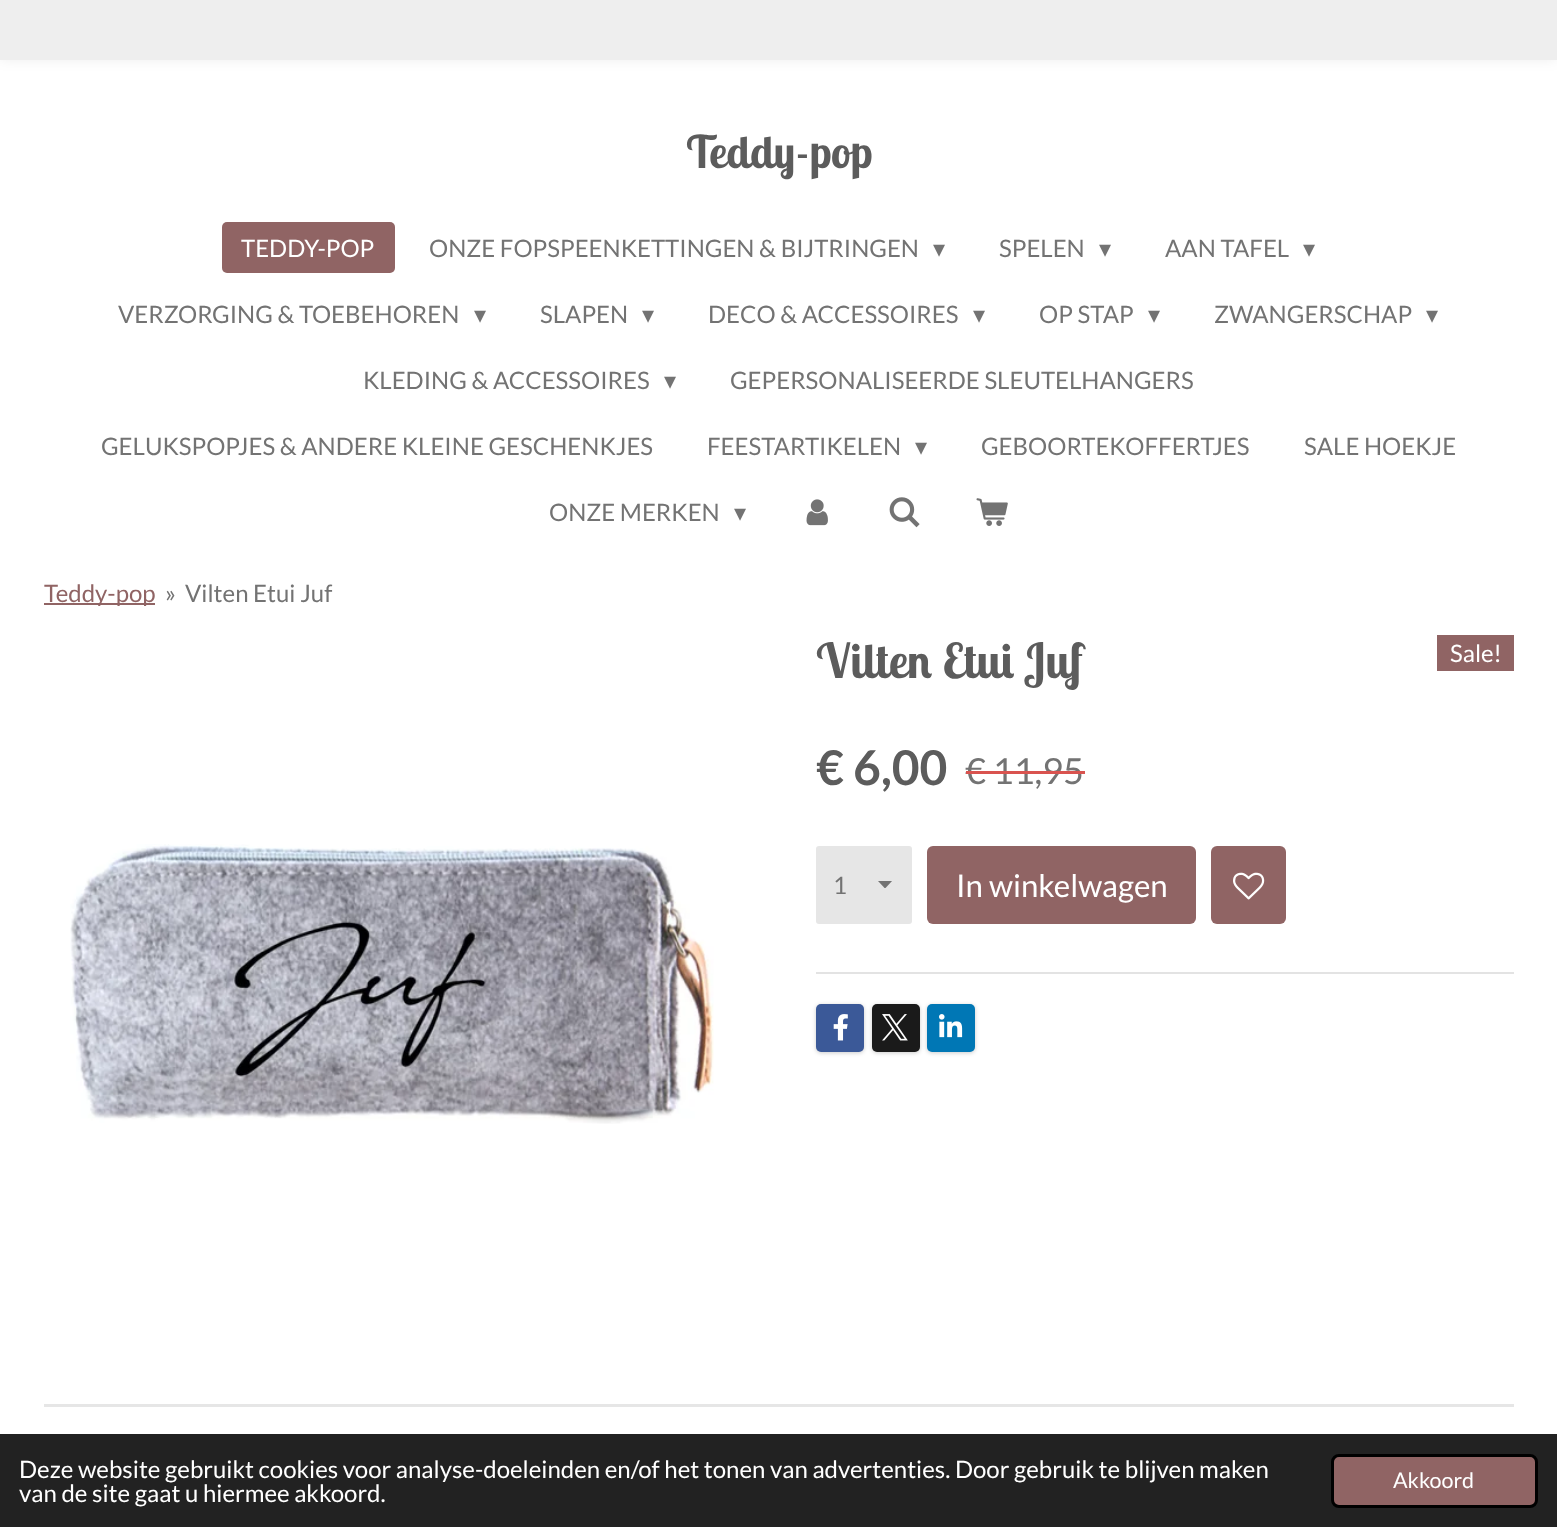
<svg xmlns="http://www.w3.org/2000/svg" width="1557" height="1527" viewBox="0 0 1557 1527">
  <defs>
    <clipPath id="clip1"><path d="M878 881h16v7H878z"/></clipPath>
  </defs>
  <rect width="100%" height="100%" fill="#fff"/>
  <path d="M0 -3h1557v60H0z" fill="#0000001a" filter="blur(7.5px)"/>
  <path d="M0 0h1557v60H0z" fill="#eee"/>
  <rect x="222" y="222" width="173" height="51" rx="5" fill="#906464"/>
  <image x="806" y="499" width="22" height="27" href="img/1.png"/>
  <image x="889" y="497" width="31" height="31" href="img/2.png"/>
  <image x="976" y="498" width="32" height="28" href="img/3.png"/>
  <path d="M44 603h111v2H44z" fill="#906464"/>
  <path d="M1437 635h77v36H1437z" fill="#906464"/>
  <rect x="816" y="846" width="96" height="78" rx="3" fill="#e6e6e6"/>
  <g clip-path="url(#clip1)">
    <path d="M885 888.5L877.5 880.5H892.5Z" fill="#737373"/>
  </g>
  <rect x="927" y="846" width="269" height="78" rx="6" fill="#906464"/>
  <rect x="1211" y="846" width="75" height="78" rx="6" fill="#906464"/>
  <image x="1233" y="872" width="32" height="28" href="img/4.png"/>
  <path d="M816 972h698v2H816z" fill="#e3e3e3"/>
  <rect x="816" y="1005" width="48" height="48" rx="5" fill="#00000033" filter="blur(2px)"/>
  <rect x="816" y="1004" width="48" height="48" rx="5" fill="#3b5998"/>
  <image x="833" y="1014" width="15" height="27" href="img/5.png"/>
  <rect x="872" y="1005" width="48" height="48" rx="5" fill="#00000033" filter="blur(2px)"/>
  <rect x="872" y="1004" width="48" height="48" rx="5" fill="#1a1a1a"/>
  <image x="882" y="1014" width="26" height="27" href="img/6.png"/>
  <rect x="927" y="1005" width="48" height="48" rx="5" fill="#00000033" filter="blur(2px)"/>
  <rect x="927" y="1004" width="48" height="48" rx="5" fill="#0077b5"/>
  <image x="939" y="1014" width="24" height="24" href="img/7.png"/>
  <image x="70" y="844" width="644" height="280" href="img/8.png"/>
  <path d="M44 1404h1470v3H44z" fill="#e6e6e6"/>
  <path d="M0 1434h1557v93H0z" fill="#222"/>
  <rect x="1332.5" y="1455.5" width="204" height="51" rx="6.5" fill="#906464" stroke="#000" stroke-width="3"/>
  <text x="686" y="168" font-family="Lobster Two" font-size="45" font-weight="bold" fill="#5c5c5c">Teddy-pop</text>
  <text x="241" y="257" font-family="Lato" font-size="24" fill="#fff">TEDDY-POP</text>
  <text x="429" y="257" font-family="Lato" font-size="24" fill="#737373">ONZE FOPSPEENKETTINGEN &amp; BIJTRINGEN</text>
  <text x="933" y="257" font-family="DejaVu Sans" font-size="24" fill="#737373">▾</text>
  <text x="999" y="257" font-family="Lato" font-size="24" fill="#737373">SPELEN</text>
  <text x="1099" y="257" font-family="DejaVu Sans" font-size="24" fill="#737373">▾</text>
  <text x="1165" y="257" font-family="Lato" font-size="24" fill="#737373">AAN TAFEL</text>
  <text x="1303" y="257" font-family="DejaVu Sans" font-size="24" fill="#737373">▾</text>
  <text x="118" y="323" font-family="Lato" font-size="24" fill="#737373">VERZORGING &amp; TOEBEHOREN</text>
  <text x="474" y="323" font-family="DejaVu Sans" font-size="24" fill="#737373">▾</text>
  <text x="540" y="323" font-family="Lato" font-size="24" fill="#737373">SLAPEN</text>
  <text x="642" y="323" font-family="DejaVu Sans" font-size="24" fill="#737373">▾</text>
  <text x="708" y="323" font-family="Lato" font-size="24" fill="#737373">DECO &amp; ACCESSOIRES</text>
  <text x="973" y="323" font-family="DejaVu Sans" font-size="24" fill="#737373">▾</text>
  <text x="1039" y="323" font-family="Lato" font-size="24" fill="#737373">OP STAP</text>
  <text x="1148" y="323" font-family="DejaVu Sans" font-size="24" fill="#737373">▾</text>
  <text x="1214" y="323" font-family="Lato" font-size="24" fill="#737373">ZWANGERSCHAP</text>
  <text x="1426" y="323" font-family="DejaVu Sans" font-size="24" fill="#737373">▾</text>
  <text x="363" y="389" font-family="Lato" font-size="24" fill="#737373">KLEDING &amp; ACCESSOIRES</text>
  <text x="664" y="389" font-family="DejaVu Sans" font-size="24" fill="#737373">▾</text>
  <g font-family="Lato" font-size="24" fill="#737373">
    <text x="730" y="389">GEPERSONALISEERDE SLEUTELHANGERS</text>
    <text x="101" y="455">GELUKSPOPJES &amp; ANDERE KLEINE GESCHENKJES</text>
    <text x="707" y="455">FEESTARTIKELEN</text>
  </g>
  <text x="915" y="455" font-family="DejaVu Sans" font-size="24" fill="#737373">▾</text>
  <g font-family="Lato" font-size="24" fill="#737373">
    <text x="981" y="455">GEBOORTEKOFFERTJES</text>
    <text x="1304" y="455">SALE HOEKJE</text>
    <text x="549" y="521">ONZE MERKEN</text>
  </g>
  <text x="734" y="521" font-family="DejaVu Sans" font-size="24" fill="#737373">▾</text>
  <text x="44" y="602" font-family="Lato" font-size="24" fill="#906464">Teddy-pop</text>
  <g font-family="Lato" font-size="24" fill="#737373">
    <text x="165" y="602">»</text>
    <text x="185" y="602">Vilten Etui Juf</text>
  </g>
  <text x="816" y="678" font-family="Lobster Two" font-size="48" font-weight="bold" fill="#5c5c5c">Vilten Etui Juf</text>
  <text x="1450" y="662" font-family="Lato" font-size="24" fill="#fff">Sale!</text>
  <text x="816" y="785" font-family="Lato" font-size="48" font-weight="bold" fill="#5c5c5c">€ 6,00</text>
  <text x="965" y="784" font-family="Lato" font-size="36" fill="#737373">€ 11,95</text>
  <path d="M966 771h119v3H966z" fill="#d9534f"/>
  <text x="833" y="894" font-family="Lato" font-size="24" fill="#737373">1</text>
  <text x="956" y="897" font-family="Lato" font-size="31.25" fill="#fff">In winkelwagen</text>
  <g font-family="Lato" font-size="24" fill="#fff">
    <text x="19" y="1478">Deze website gebruikt cookies voor analyse-doeleinden en/of het tonen van advertenties. Door gebruik te blijven maken</text>
    <text x="19" y="1502">van de site gaat u hiermee akkoord.</text>
  </g>
  <text x="1393" y="1488" font-family="Lato" font-size="21.5" fill="#fff">Akkoord</text>
</svg>
